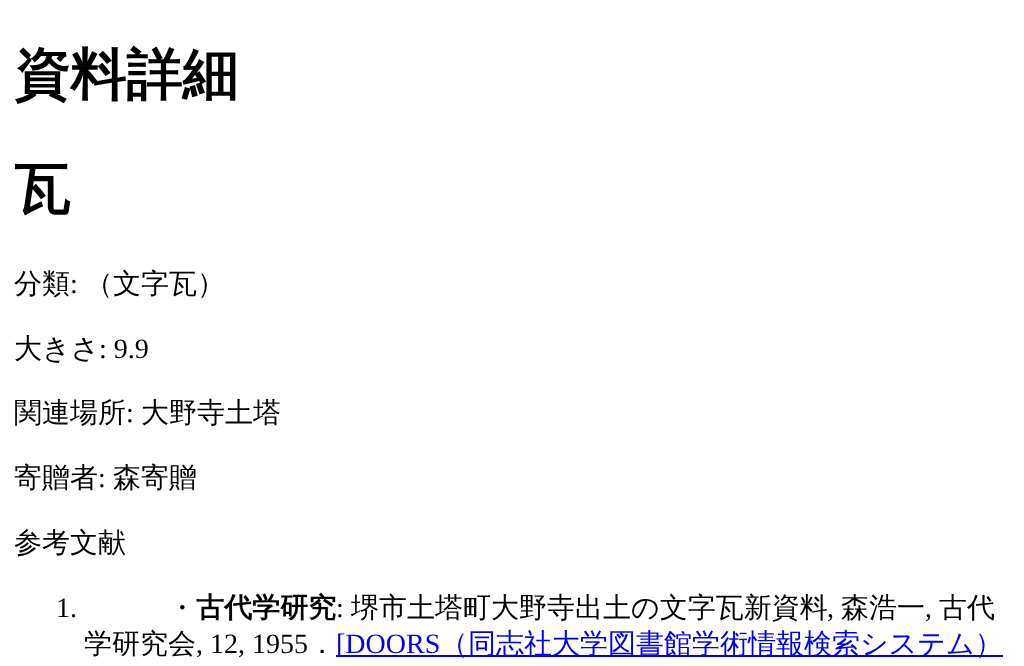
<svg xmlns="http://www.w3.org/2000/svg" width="1024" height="666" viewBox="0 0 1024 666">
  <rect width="100%" height="100%" fill="#fff"/>
  <path d="M336 655h667v2H336z" fill="#00e"/>
  <g font-family="WenQuanYi Zen Hei" font-size="56" font-weight="bold" fill="#000">
    <text x="14" y="94">資料詳細</text>
    <text x="14" y="208">瓦</text>
  </g>
  <text x="14" y="293" font-family="WenQuanYi Zen Hei" font-size="28" font-weight="500" fill="#000">分類</text>
  <text x="70" y="293" font-family="Liberation Serif" font-size="28" fill="#000">:</text>
  <g font-family="WenQuanYi Zen Hei" font-size="28" font-weight="500" fill="#000">
    <text x="85" y="293">（文字瓦）</text>
    <text x="14" y="358">大きさ</text>
  </g>
  <text x="99" y="358" font-family="Liberation Serif" font-size="28" fill="#000">: 9.9</text>
  <text x="14" y="422" font-family="WenQuanYi Zen Hei" font-size="28" font-weight="500" fill="#000">関連場所</text>
  <text x="126" y="422" font-family="Liberation Serif" font-size="28" fill="#000">:</text>
  <g font-family="WenQuanYi Zen Hei" font-size="28" font-weight="500" fill="#000">
    <text x="141" y="422">大野寺土塔</text>
    <text x="14" y="487">寄贈者</text>
  </g>
  <text x="98" y="487" font-family="Liberation Serif" font-size="28" fill="#000">:</text>
  <g font-family="WenQuanYi Zen Hei" font-size="28" font-weight="500" fill="#000">
    <text x="113" y="487">森寄贈</text>
    <text x="14" y="552">参考文献</text>
  </g>
  <text x="56" y="617" font-family="Liberation Serif" font-size="28" fill="#000">1.</text>
  <text x="168" y="617" font-family="WenQuanYi Zen Hei" font-size="28" font-weight="500" fill="#000">・</text>
  <text x="196" y="617" font-family="WenQuanYi Zen Hei" font-size="28" font-weight="bold" fill="#000">古代学研究</text>
  <text x="336" y="617" font-family="Liberation Serif" font-size="28" fill="#000">:</text>
  <g font-family="WenQuanYi Zen Hei" font-size="28" font-weight="500" fill="#000">
    <text x="351" y="617">堺市土塔町大野寺出土の文字瓦新資料</text>
    <text x="841" y="617">森浩一</text>
    <text x="939" y="617">古代</text>
  </g>
  <g font-family="Liberation Serif" font-size="28" fill="#000">
    <text x="827" y="617">,</text>
    <text x="925" y="617">,</text>
  </g>
  <text x="84" y="653" font-family="WenQuanYi Zen Hei" font-size="28" font-weight="500" fill="#000">学研究会</text>
  <text x="196" y="653" font-family="Liberation Serif" font-size="28" fill="#000">, 12, 1955</text>
  <text x="308" y="653" font-family="WenQuanYi Zen Hei" font-size="28" font-weight="500" fill="#000">．</text>
  <text x="336" y="653" font-family="Liberation Serif" font-size="28" fill="#00e">[DOORS</text>
  <text x="440" y="653" font-family="WenQuanYi Zen Hei" font-size="28" font-weight="500" fill="#00e">（同志社大学図書館学術情報検索システム）</text>
</svg>
